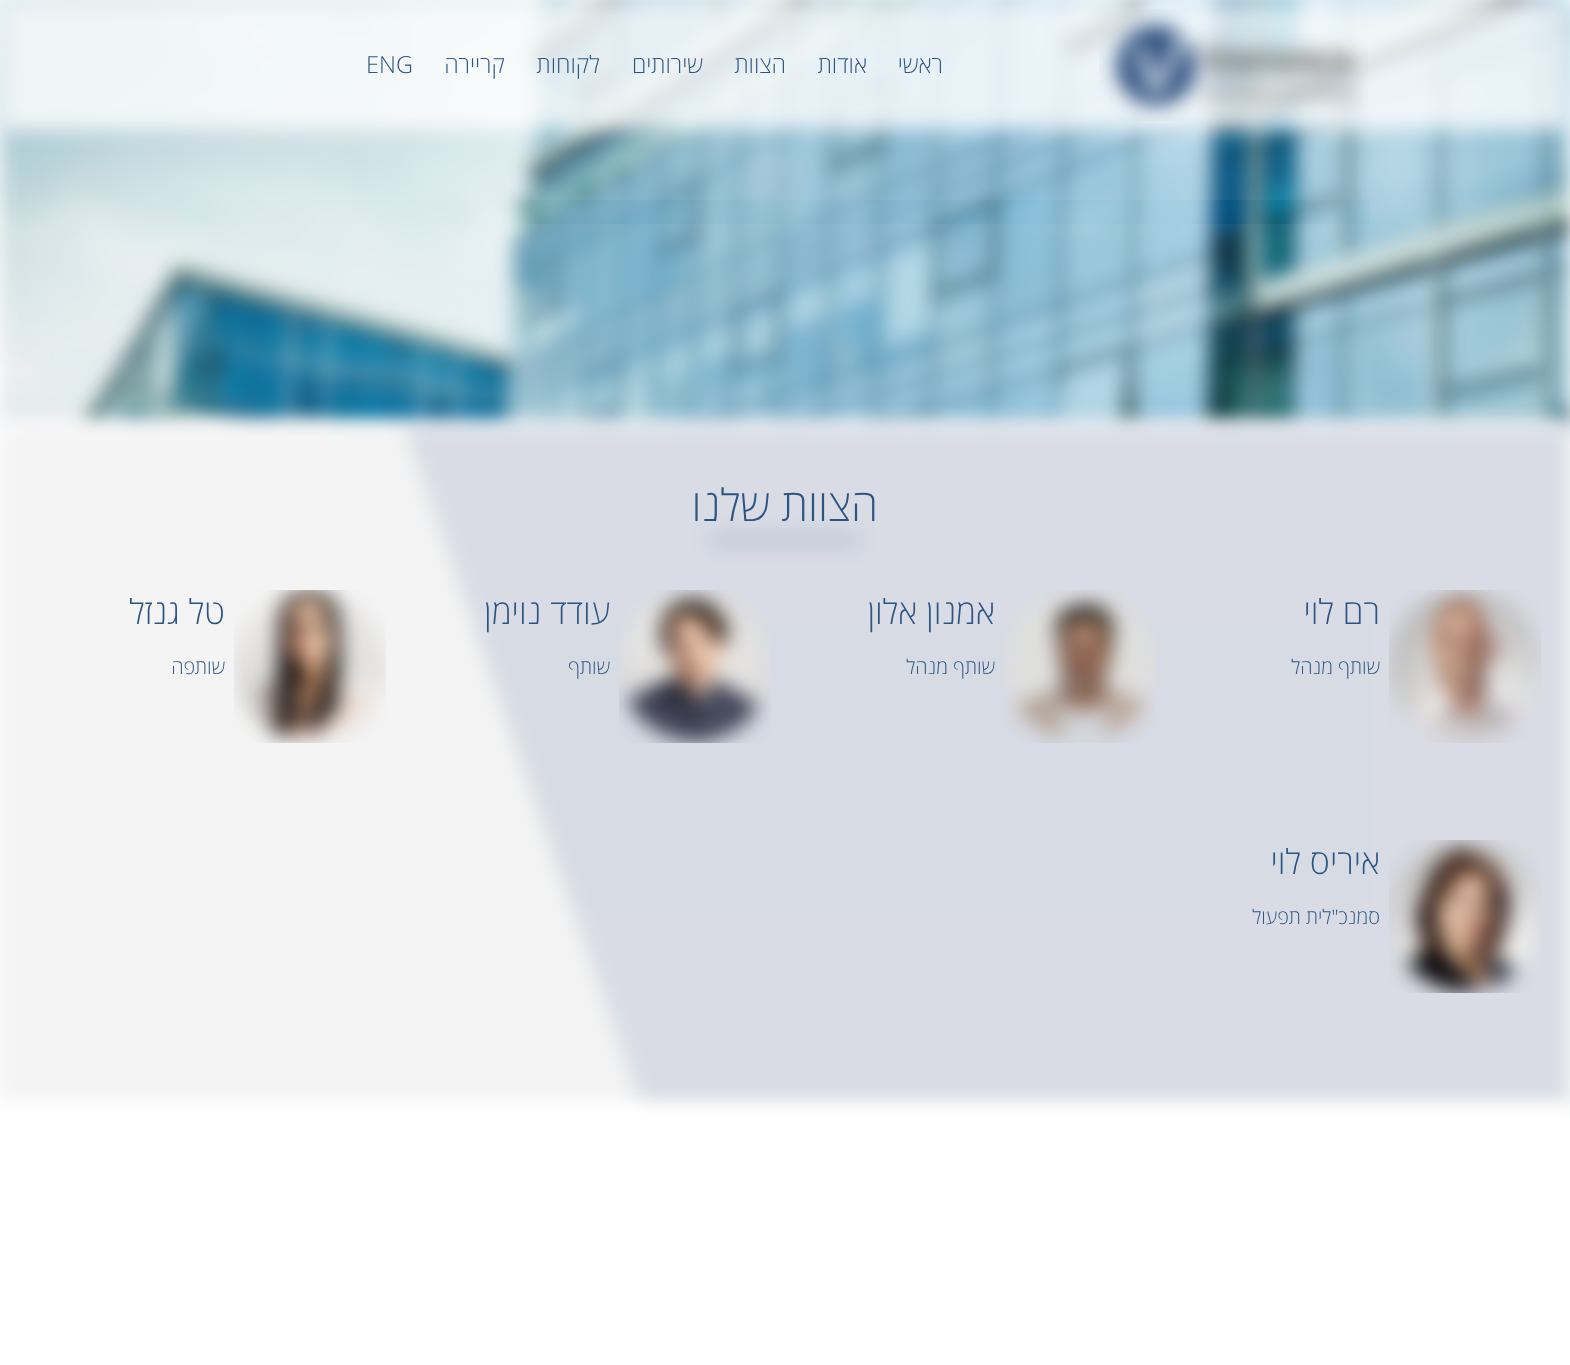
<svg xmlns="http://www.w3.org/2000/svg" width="1570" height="1365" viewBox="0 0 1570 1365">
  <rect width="100%" height="100%" fill="#fff"/>
  <image x="0" y="0" width="1570" height="443" href="img/2.png"/>
  <path d="M100 100h1370v224H100z" fill="none" stroke="#ffffff0d" stroke-width="200"/>
  <path d="M0 0h1570v130H0z" fill="#ffffffcc" filter="blur(10px)"/>
  <image x="1099" y="9" width="269" height="112" href="img/1.png"/>
  <image x="0" y="405" width="1570" height="715" href="img/3.png"/>
  <path d="M100 524h1370v482H100z" fill="none" stroke="#ffffff0d" stroke-width="200"/>
  <path d="M711 539h148v2H711z" fill="#2c5482" filter="blur(10px)"/>
  <image x="1389" y="590" width="152" height="153" href="img/4.png"/>
  <image x="1004" y="590" width="152" height="153" href="img/5.png"/>
  <image x="619" y="590" width="152" height="153" href="img/6.png"/>
  <image x="234" y="590" width="152" height="153" href="img/7.png"/>
  <image x="1389" y="840" width="152" height="153" href="img/8.png"/>
  <path d="M0 1106h1570v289H0z" fill="#fff" filter="blur(10px)"/>
  <g font-family="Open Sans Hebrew" font-size="23.5" font-weight="300" direction="rtl" fill="#2c5482">
    <text x="943" y="73">ראשי</text>
    <text x="867" y="73">אודות</text>
    <text x="786" y="73">הצוות</text>
    <text x="703" y="73">שירותים</text>
    <text x="600" y="73">לקוחות</text>
    <text x="505" y="73">קריירה</text>
  </g>
  <text x="366" y="73" font-family="Open Sans Hebrew" font-size="23.5" font-weight="300" fill="#2c5482">ENG</text>
  <text x="878" y="521" font-family="Open Sans Hebrew" font-size="44" font-weight="300" direction="rtl" fill="#2c5482">הצוות שלנו</text>
  <text x="1380" y="624" font-family="Open Sans Hebrew" font-size="34" font-weight="300" direction="rtl" fill="#2c5482">רם לוי</text>
  <text x="1380" y="674" font-family="Open Sans Hebrew" font-size="20" font-weight="300" direction="rtl" fill="#2c5482">שותף מנהל</text>
  <text x="995" y="624" font-family="Open Sans Hebrew" font-size="34" font-weight="300" direction="rtl" fill="#2c5482">אמנון אלון</text>
  <text x="995" y="674" font-family="Open Sans Hebrew" font-size="20" font-weight="300" direction="rtl" fill="#2c5482">שותף מנהל</text>
  <text x="610" y="624" font-family="Open Sans Hebrew" font-size="34" font-weight="300" direction="rtl" fill="#2c5482">עודד נוימן</text>
  <text x="610" y="674" font-family="Open Sans Hebrew" font-size="20" font-weight="300" direction="rtl" fill="#2c5482">שותף</text>
  <text x="225" y="624" font-family="Open Sans Hebrew" font-size="34" font-weight="300" direction="rtl" fill="#2c5482">טל גנזל</text>
  <text x="225" y="674" font-family="Open Sans Hebrew" font-size="20" font-weight="300" direction="rtl" fill="#2c5482">שותפה</text>
  <text x="1380" y="874" font-family="Open Sans Hebrew" font-size="34" font-weight="300" direction="rtl" fill="#2c5482">איריס לוי</text>
  <text x="1380" y="924" font-family="Open Sans Hebrew" font-size="20" font-weight="300" direction="rtl" fill="#2c5482">סמנכ"לית תפעול</text>
</svg>
